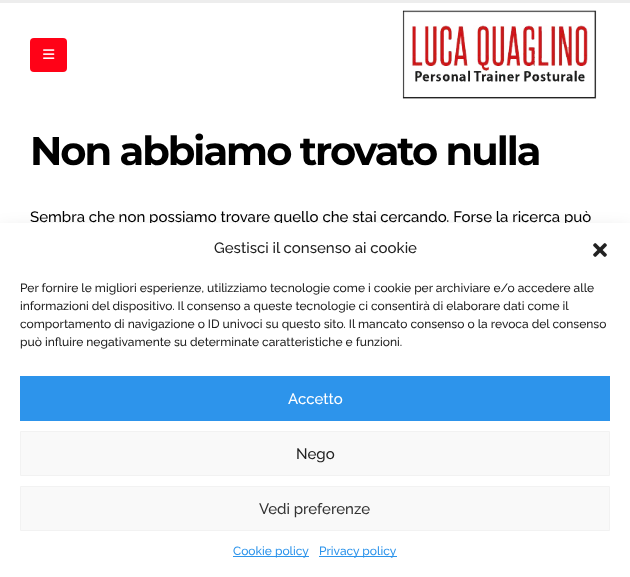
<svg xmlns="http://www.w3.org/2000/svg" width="630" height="577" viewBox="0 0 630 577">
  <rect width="100%" height="100%" fill="#fff"/>
  <path d="M0 0h630v3H0z" fill="#ededed"/>
  <rect x="30" y="38" width="37" height="34" rx="4" fill="#ff0217"/>
  <image x="43" y="49" width="12" height="10" href="img/1.png"/>
  <image x="402" y="10" width="195" height="89" href="img/2.png"/>
  <path d="M0 233h630v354H0z" fill="#00000030" filter="blur(10px)"/>
  <text x="30" y="165" font-family="Montserrat" font-size="40" font-weight="bold" letter-spacing="-2" fill="#000">Non abbiamo trovato nulla</text>
  <text x="30" y="222" font-family="Raleway" font-size="15" font-weight="500" fill="#000">Sembra che non possiamo trovare quello che stai cercando. Forse la ricerca può</text>
  <path d="M0 223h630v354H0z" fill="#fff"/>
  <text x="214" y="253" font-family="Raleway" font-size="15" font-weight="500" fill="#222">Gestisci il consenso ai cookie</text>
  <image x="593" y="243" width="14" height="14" href="img/3.png"/>
  <g font-family="Raleway" font-size="12" font-weight="500" fill="#222">
    <text x="20" y="292">Per fornire le migliori esperienze, utilizziamo tecnologie come i cookie per archiviare e/o accedere alle</text>
    <text x="20" y="310">informazioni del dispositivo. Il consenso a queste tecnologie ci consentirà di elaborare dati come il</text>
    <text x="20" y="328">comportamento di navigazione o ID univoci su questo sito. Il mancato consenso o la revoca del consenso</text>
    <text x="20" y="346">può influire negativamente su determinate caratteristiche e funzioni.</text>
  </g>
  <path d="M20 376h590v45H20z" fill="#2d94eb"/>
  <text x="288" y="404" font-family="Raleway" font-size="15" font-weight="500" fill="#fff">Accetto</text>
  <path d="M20.5 431.5h589v44H20.5z" fill="#f9f9f9" stroke="#f2f2f2"/>
  <text x="296" y="459" font-family="Raleway" font-size="15" font-weight="500" fill="#222">Nego</text>
  <path d="M20.5 486.5h589v44H20.5z" fill="#f9f9f9" stroke="#f2f2f2"/>
  <text x="259" y="514" font-family="Raleway" font-size="15" font-weight="500" fill="#333">Vedi preferenze</text>
  <path d="M233 556h76v1H233z" fill="#2d94eb"/>
  <text x="233" y="555" font-family="Raleway" font-size="12" font-weight="500" fill="#2d94eb">Cookie policy</text>
  <path d="M319 556h78v1H319z" fill="#2d94eb"/>
  <text x="319" y="555" font-family="Raleway" font-size="12" font-weight="500" fill="#2d94eb">Privacy policy</text>
</svg>
